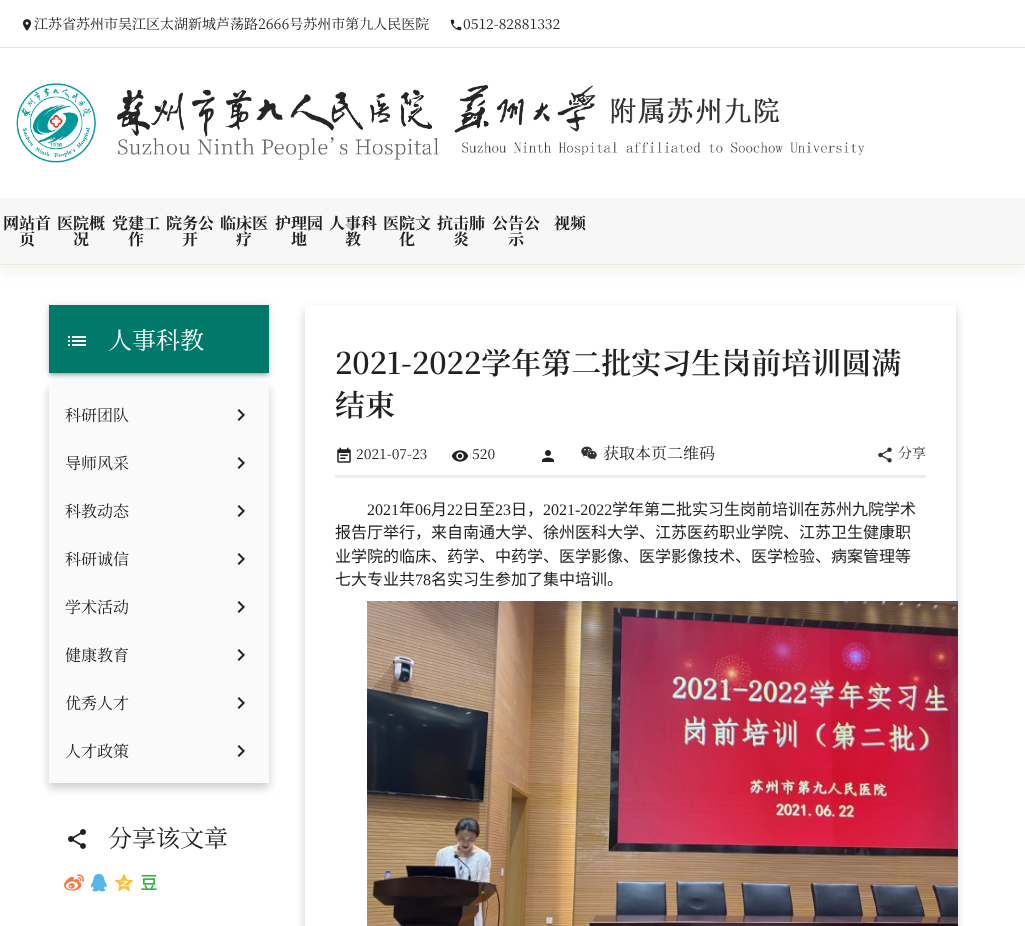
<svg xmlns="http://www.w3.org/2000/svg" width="1025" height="926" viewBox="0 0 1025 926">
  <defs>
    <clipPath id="clip1"><path d="M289 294H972V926H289ZM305 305H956V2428H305Z" clip-rule="evenodd"/></clipPath>
  </defs>
  <rect width="100%" height="100%" fill="#fff"/>
  <path d="M0 47h1025v1H0z" fill="#e4e4e4"/>
  <image x="22" y="19" width="10" height="12" href="img/1.png"/>
  <image x="450" y="19" width="12" height="12" href="img/2.png"/>
  <path d="M0 264h1025v1H0z" fill="#f2f2f2"/>
  <image x="16" y="83" width="849" height="80" href="img/3.png"/>
  <path d="M0 208h1025v66H0z" fill="#b199751a" filter="blur(5px)"/>
  <path d="M0 198h1025v66H0z" fill="#f7f7f7"/>
  <path d="M49 306h220v68H49z" fill="#0000001f" filter="blur(4px)"/>
  <path d="M49 308h220v68H49z" fill="#00000024" filter="blur(2px)"/>
  <path d="M51 310h216v64H51z" fill="#00000033" filter="blur(1.5px)"/>
  <path d="M49 305h220v68H49z" fill="#00796b"/>
  <image x="68" y="336" width="18" height="10" href="img/4.png"/>
  <path d="M49 388h220v400H49z" fill="#00000033" filter="blur(5px)"/>
  <path d="M49 383h220v400H49z" fill="#fafafa"/>
  <image x="237" y="409" width="8" height="12" href="img/5.png"/>
  <image x="237" y="457" width="8" height="12" href="img/5.png"/>
  <image x="237" y="505" width="8" height="12" href="img/5.png"/>
  <image x="237" y="553" width="8" height="12" href="img/5.png"/>
  <image x="237" y="601" width="8" height="12" href="img/5.png"/>
  <image x="237" y="649" width="8" height="12" href="img/5.png"/>
  <image x="237" y="697" width="8" height="12" href="img/5.png"/>
  <image x="237" y="745" width="8" height="12" href="img/5.png"/>
  <image x="68" y="829" width="18" height="20" href="img/6.png"/>
  <image x="64" y="874" width="20" height="17" href="img/7.png"/>
  <image x="90" y="873" width="17" height="19" href="img/8.png"/>
  <image x="114" y="873" width="20" height="19" href="img/9.png"/>
  <image x="141" y="874" width="16" height="16" href="img/10.png"/>
  <g clip-path="url(#clip1)">
    <path d="M305 310h651v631H305z" fill="#00000033" filter="blur(5px)"/>
  </g>
  <image x="337" y="447" width="14" height="16" href="img/11.png"/>
  <image x="451" y="450" width="18" height="12" href="img/12.png"/>
  <image x="542" y="450" width="12" height="12" href="img/13.png"/>
  <image x="581" y="446" width="16" height="14" href="img/14.png"/>
  <image x="878" y="447" width="14" height="16" href="img/15.png"/>
  <path d="M335 475h591v3H335z" fill="#eee"/>
  <image x="367" y="601" width="591" height="325" href="img/16.png"/>
  <g font-family="Noto Serif SC" font-size="14" fill="#212121">
    <text x="34" y="29">江苏省苏州市吴江区太湖新城芦荡路2666号苏州市第九人民医院</text>
    <text x="463" y="29">0512-82881332</text>
  </g>
  <g font-family="Noto Serif SC" font-size="16" font-weight="bold" fill="#212121">
    <text x="3" y="229">网站首</text>
    <text x="19" y="245">页</text>
    <text x="57" y="229">医院概</text>
    <text x="73" y="245">况</text>
    <text x="112" y="229">党建工</text>
    <text x="128" y="245">作</text>
    <text x="166" y="229">院务公</text>
    <text x="182" y="245">开</text>
    <text x="220" y="229">临床医</text>
    <text x="236" y="245">疗</text>
    <text x="275" y="229">护理园</text>
    <text x="291" y="245">地</text>
    <text x="329" y="229">人事科</text>
    <text x="345" y="245">教</text>
    <text x="383" y="229">医院文</text>
    <text x="399" y="245">化</text>
    <text x="437" y="229">抗击肺</text>
    <text x="453" y="245">炎</text>
    <text x="492" y="229">公告公</text>
    <text x="508" y="245">示</text>
    <text x="554" y="229">视频</text>
  </g>
  <text x="108" y="349" font-family="Noto Serif SC" font-size="24" fill="#fff">人事科教</text>
  <g font-family="Noto Serif SC" font-size="16" fill="#212121">
    <text x="65" y="421">科研团队</text>
    <text x="65" y="469">导师风采</text>
    <text x="65" y="517">科教动态</text>
    <text x="65" y="565">科研诚信</text>
    <text x="65" y="613">学术活动</text>
    <text x="65" y="661">健康教育</text>
    <text x="65" y="709">优秀人才</text>
    <text x="65" y="757">人才政策</text>
  </g>
  <text x="108" y="847" font-family="Noto Serif SC" font-size="24" fill="#212121">分享该文章</text>
  <g font-family="Noto Serif SC" font-size="30" font-weight="600" fill="#212121">
    <text x="335" y="374">2021-2022学年第二批实习生岗前培训圆满</text>
    <text x="335" y="416">结束</text>
  </g>
  <g font-family="Noto Serif SC" font-size="14" fill="#212121">
    <text x="356" y="459">2021-07-23</text>
    <text x="472" y="459">520</text>
  </g>
  <text x="603" y="459" font-family="Noto Serif CJK SC" font-size="16" fill="#212121">获取本页二维码</text>
  <text x="898" y="458" font-family="Noto Serif SC" font-size="14" fill="#333">分享</text>
  <text x="367" y="515" font-family="Liberation Serif" font-size="16" fill="#212121">2021</text>
  <text x="399" y="515" font-family="Noto Sans CJK SC" font-size="16" fill="#212121">年</text>
  <text x="415" y="515" font-family="Liberation Serif" font-size="16" fill="#212121">06</text>
  <text x="431" y="515" font-family="Noto Sans CJK SC" font-size="16" fill="#212121">月</text>
  <text x="447" y="515" font-family="Liberation Serif" font-size="16" fill="#212121">22</text>
  <text x="463" y="515" font-family="Noto Sans CJK SC" font-size="16" fill="#212121">日至</text>
  <text x="495" y="515" font-family="Liberation Serif" font-size="16" fill="#212121">23</text>
  <text x="511" y="515" font-family="Noto Sans CJK SC" font-size="16" fill="#212121">日，</text>
  <text x="543" y="515" font-family="Liberation Serif" font-size="16" fill="#212121">2021-2022</text>
  <g font-family="Noto Sans CJK SC" font-size="16" fill="#212121">
    <text x="612" y="515">学年第二批实习生岗前培训在苏州九院学术</text>
    <text x="335" y="538">报告厅举行，来自南通大学、徐州医科大学、江苏医药职业学院、江苏卫生健康职</text>
    <text x="335" y="562">业学院的临床、药学、中药学、医学影像、医学影像技术、医学检验、病案管理等</text>
    <text x="335" y="585">七大专业共</text>
  </g>
  <text x="415" y="585" font-family="Liberation Serif" font-size="16" fill="#212121">78</text>
  <text x="431" y="585" font-family="Noto Sans CJK SC" font-size="16" fill="#212121">名实习生参加了集中培训。</text>
</svg>
